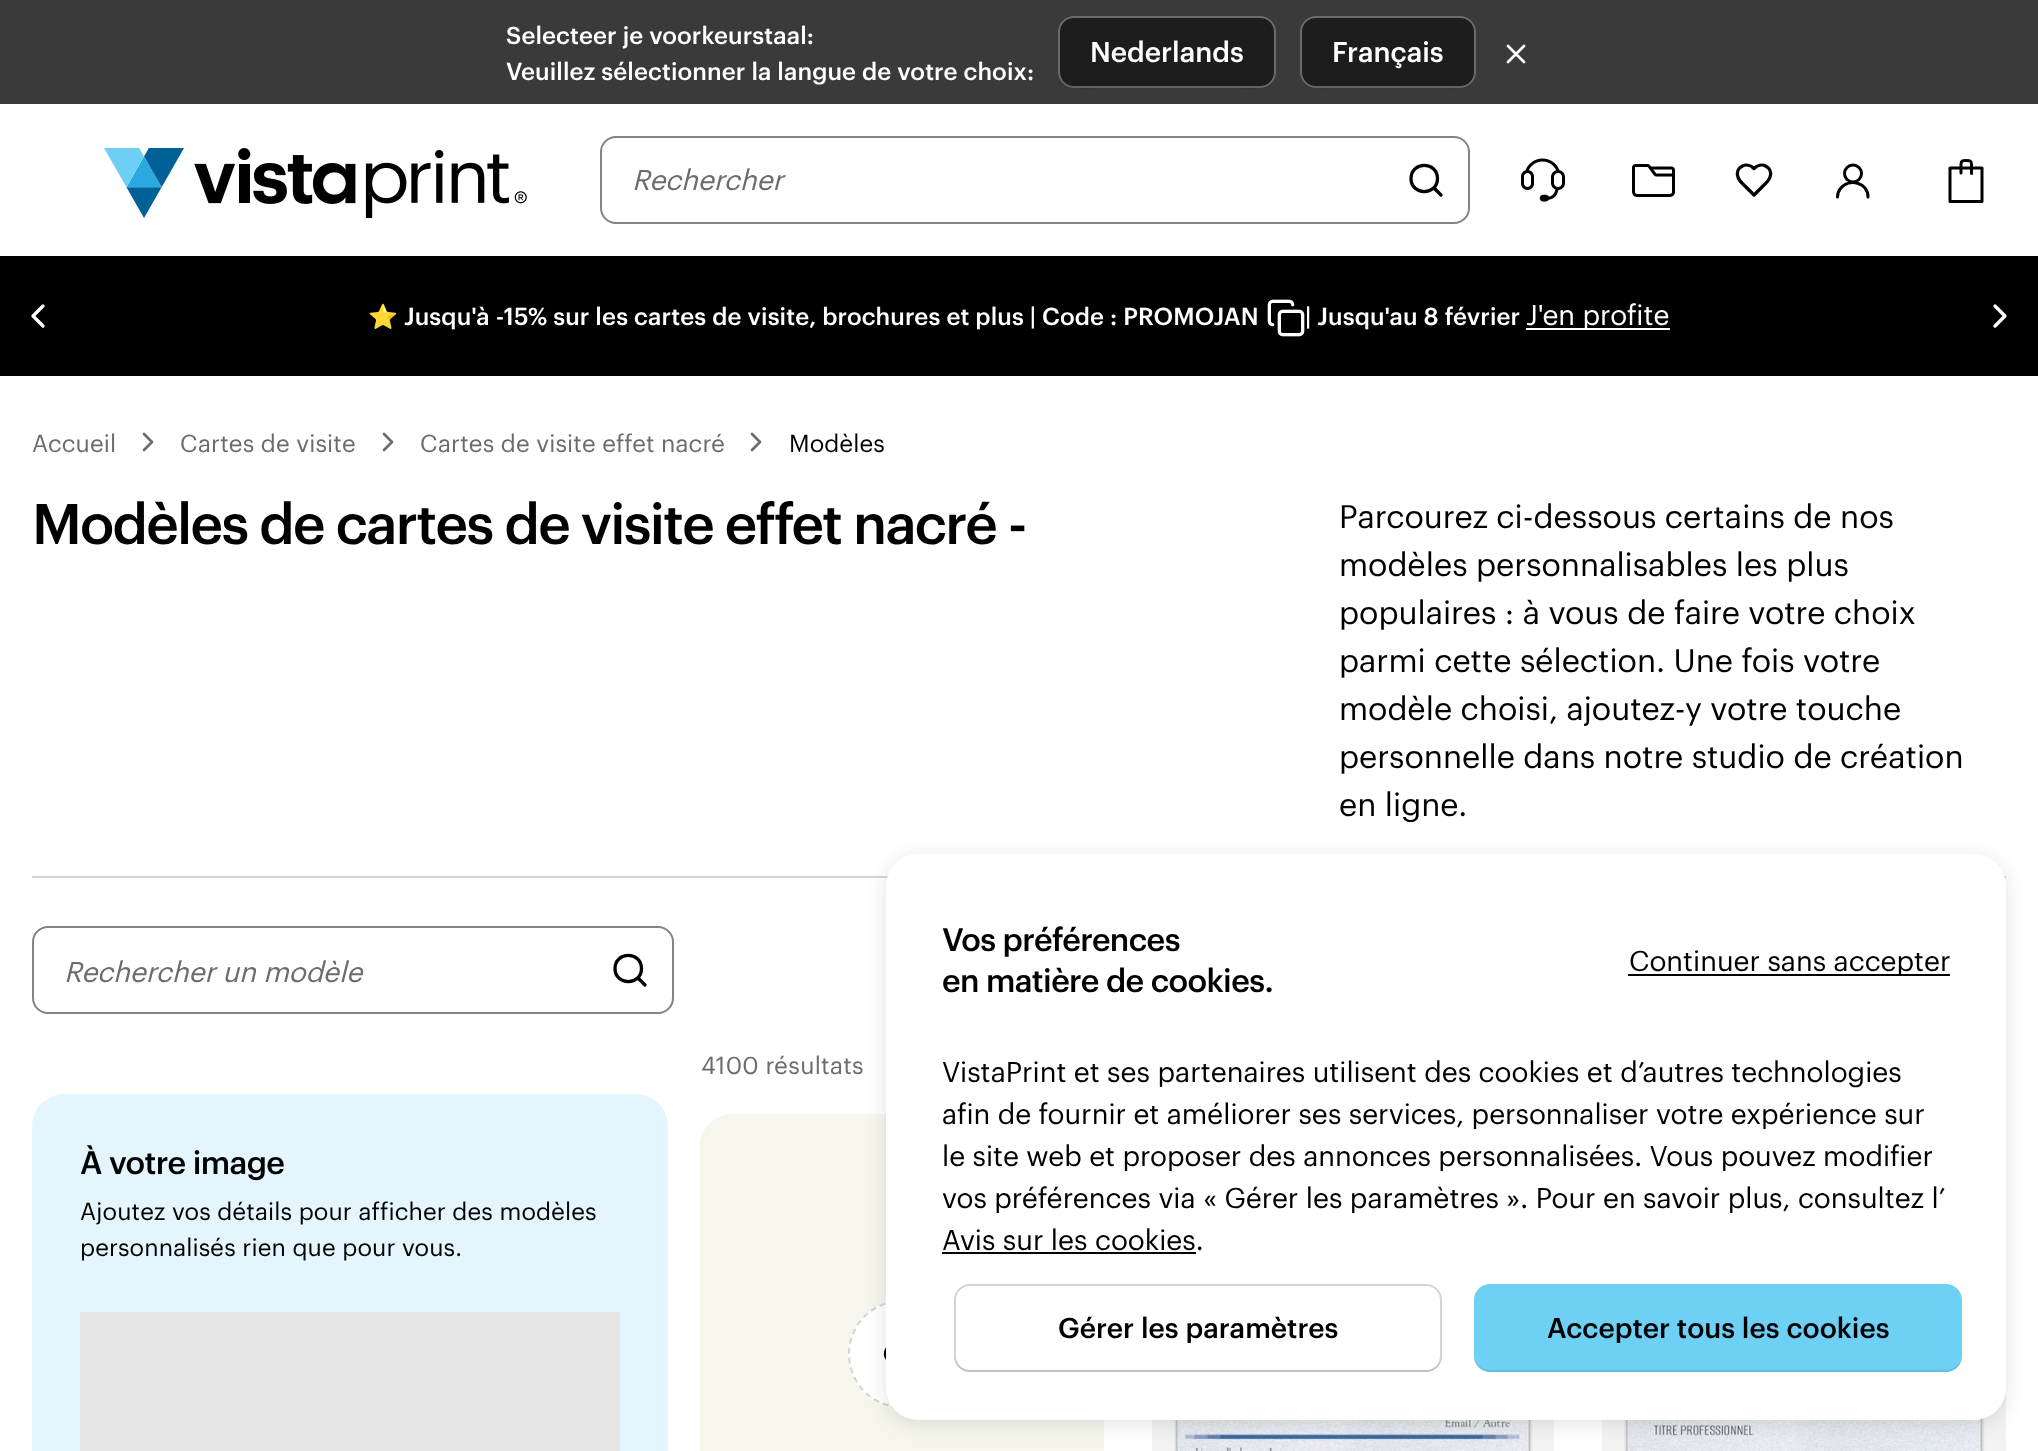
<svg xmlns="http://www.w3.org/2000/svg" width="2038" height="1451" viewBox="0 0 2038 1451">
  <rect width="100%" height="100%" fill="#fff"/>
  <path d="M0 0h2038v104H0z" fill="#3a3a3a"/>
  <rect x="1058" y="16" width="218" height="72" rx="16" fill="#1d1d1d"/>
  <rect x="1059" y="17" width="216" height="70" rx="15" fill="none" stroke="#ffffff59" stroke-width="2"/>
  <path d="M1058 70C1058 95 1089 88 1105 88H1229C1245 88 1276 95 1276 70C1276 79 1269 86 1260 86H1074C1065 86 1058 79 1058 70Z" fill="#00000017"/>
  <rect x="1300" y="16" width="176" height="72" rx="16" fill="#1d1d1d"/>
  <rect x="1301" y="17" width="174" height="70" rx="15" fill="none" stroke="#ffffff59" stroke-width="2"/>
  <path d="M1300 70C1300 93 1324 88 1340 88H1436C1452 88 1476 93 1476 70C1476 79 1469 86 1460 86H1316C1307 86 1300 79 1300 70Z" fill="#00000017"/>
  <path d="M1524 46L1508 62M1508 46L1524 62" fill="none" stroke="#fff" stroke-width="2.7" stroke-linecap="round" stroke-linejoin="round"/>
  <image x="104" y="148" width="423" height="70" href="img/1.png"/>
  <rect x="601" y="137" width="868" height="86" rx="15" fill="none" stroke="#838383" stroke-width="2"/>
  <path d="M1441 195L1434 188M1437.5 178.5C1437.5 196 1411 196 1411 178.5C1411 161 1437.5 161 1437.5 178.5Z" fill="none" stroke="#000" stroke-width="3.3" stroke-linecap="round" stroke-linejoin="round"/>
  <image x="1521" y="158" width="44" height="44" href="img/2.png"/>
  <image x="1632" y="164" width="43" height="33" href="img/3.png"/>
  <path d="M1765.5 183.5C1767.5 181.5 1769.5 179.5 1770 177C1773.5 167 1761 161 1754 168.5C1747 161 1734.5 167 1738 177C1739 181 1743 184 1746 187L1754 195Z" fill="none" stroke="#000" stroke-width="3.3" stroke-linecap="round" stroke-linejoin="round"/>
  <circle cx="1853" cy="173.5" r="8.5" fill="none" stroke="#000" stroke-width="3"/>
  <path d="M1837.5 197C1837.5 194 1838.5 191 1840.5 188.5C1849 177.5 1868 182.5 1868 197" fill="none" stroke="#000" stroke-width="3" stroke-linecap="round" stroke-linejoin="round"/>
  <path d="M1982 168H1950V201.5H1982ZM1961 173V164.5C1961 160.5 1962.5 160.5 1966 160.5C1970 160.5 1971.5 160.5 1971.5 164.5V173.5" fill="none" stroke="#000" stroke-width="3" stroke-linecap="round" stroke-linejoin="round"/>
  <path d="M0 256h2038v120H0z" fill="#000"/>
  <path d="M43 326L33 316L43 306" fill="none" stroke="#fff" stroke-width="3.3" stroke-linecap="round" stroke-linejoin="round"/>
  <image x="1267" y="299" width="38" height="38" href="img/4.png"/>
  <path d="M1526 328h144v2H1526z" fill="#fff"/>
  <path d="M1995 326L2005 316L1995 306" fill="none" stroke="#fff" stroke-width="3.3" stroke-linecap="round" stroke-linejoin="round"/>
  <path d="M144 450L152 442L144 434" fill="none" stroke="#6c6c6c" stroke-width="2.7" stroke-linecap="round" stroke-linejoin="round"/>
  <path d="M384 450L392 442L384 434" fill="none" stroke="#6c6c6c" stroke-width="2.7" stroke-linecap="round" stroke-linejoin="round"/>
  <path d="M752 450L760 442L752 434" fill="none" stroke="#6c6c6c" stroke-width="2.7" stroke-linecap="round" stroke-linejoin="round"/>
  <path d="M32 876h1974v2H32z" fill="#d4d4d4"/>
  <rect x="33" y="927" width="640" height="86" rx="15" fill="none" stroke="#838383" stroke-width="2"/>
  <path d="M645 985L638 978M641.5 968.5C641.5 986 615 986 615 968.5C615 951 641.5 951 641.5 968.5Z" fill="none" stroke="#000" stroke-width="3.3" stroke-linecap="round" stroke-linejoin="round"/>
  <rect x="700" y="1114" width="404" height="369" rx="32" fill="#f6f6ec"/>
  <circle cx="902" cy="1354" r="54" fill="#fff"/>
  <path d="M902 1301C931.5 1301 955 1324.5 955 1354C955 1383.5 931.5 1407 902 1407C872.5 1407 849 1383.5 849 1354C849 1324.5 872.5 1301 902 1301Z" fill="none" stroke="#d3d3d3" stroke-width="2" stroke-dasharray="6 4"/>
  <path d="M902 1370.5V1355.5M902 1355.5L895.5 1362.5M902 1355.5L908.5 1362.5M889 1360.5C883 1356.5 885 1346 893 1346C894.5 1335.5 911.5 1337.5 911.5 1348.5C919.5 1347 921 1357.5 915.5 1361.5" fill="none" stroke="#000" stroke-width="3.3" stroke-linecap="round" stroke-linejoin="round"/>
  <path d="M1152 1420h402v31H1152z" fill="#f3f3f3"/>
  <image x="1174" y="1420" width="359" height="31" href="img/5.png"/>
  <path d="M1602 1388h404v63H1602z" fill="#f3f3f3"/>
  <image x="1624" y="1418" width="361" height="33" href="img/6.png"/>
  <rect x="32" y="1094" width="636" height="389" rx="32" fill="#e5f5fd"/>
  <path d="M80 1312h540v139H80z" fill="#e6e6e6"/>
  <rect x="886" y="858" width="1120" height="566" rx="32" fill="#00111a1f" filter="blur(10px)"/>
  <rect x="886" y="854" width="1120" height="566" rx="32" fill="#fff"/>
  <path d="M1628 974h322v2H1628z" fill="#000"/>
  <path d="M942 1252h254v2H942z" fill="#000"/>
  <rect x="955" y="1285" width="486" height="86" rx="15" fill="none" stroke="#d4d4d4" stroke-width="2"/>
  <path d="M954 1354V1356C954 1365 961 1372 970 1372H1426C1435 1372 1442 1365 1442 1356V1354C1442 1363 1435 1370 1426 1370H970C961 1370 954 1363 954 1354Z" fill="#00000017"/>
  <rect x="1474" y="1284" width="488" height="88" rx="16" fill="#6fd0f5"/>
  <path d="M1474 1354V1356C1474 1365 1481 1372 1490 1372H1946C1955 1372 1962 1365 1962 1356V1354C1962 1363 1955 1370 1946 1370H1490C1481 1370 1474 1363 1474 1354Z" fill="#00000017"/>
  <g font-family="Graphik" font-size="24" font-weight="500" letter-spacing="0.12" fill="#fff">
    <text x="506" y="44">Selecteer je voorkeurstaal:</text>
    <text x="506" y="80">Veuillez sélectionner la langue de votre choix:</text>
  </g>
  <g font-family="Graphik" font-size="28" font-weight="500" fill="#fff">
    <text x="1090" y="62">Nederlands</text>
    <text x="1332" y="62">Français</text>
  </g>
  <text x="632" y="190" font-family="Graphik" font-size="28" font-style="italic" fill="#6c6c6c">Rechercher</text>
  <text x="368" y="325" font-family="Noto Color Emoji" font-size="24" font-weight="bold" letter-spacing="0.12" fill="#fff">⭐</text>
  <g font-family="Graphik" font-size="24" font-weight="500" letter-spacing="0.12" fill="#fff">
    <text x="404" y="325">Jusqu'à -15% sur les cartes de visite, brochures et plus | Code : PROMOJAN</text>
    <text x="1305" y="325">| Jusqu'au 8 février</text>
  </g>
  <text x="1526" y="325" font-family="Graphik" font-size="28" fill="#fff">J'en profite</text>
  <g font-family="Graphik" font-size="24" letter-spacing="0.12" fill="#6c6c6c">
    <text x="32" y="452">Accueil</text>
    <text x="180" y="452">Cartes de visite</text>
    <text x="420" y="452">Cartes de visite effet nacré</text>
  </g>
  <text x="789" y="452" font-family="Graphik" font-size="24" letter-spacing="0.12" fill="#000">Modèles</text>
  <text x="32" y="544" font-family="Graphik" font-size="56" font-weight="500" letter-spacing="-1.7" fill="#000">Modèles de cartes de visite effet nacré -</text>
  <g font-family="Graphik" font-size="32" fill="#000">
    <text x="1339" y="528">Parcourez ci-dessous certains de nos</text>
    <text x="1339" y="576">modèles personnalisables les plus</text>
    <text x="1339" y="624">populaires : à vous de faire votre choix</text>
    <text x="1339" y="672">parmi cette sélection. Une fois votre</text>
    <text x="1339" y="720">modèle choisi, ajoutez-y votre touche</text>
    <text x="1339" y="768">personnelle dans notre studio de création</text>
    <text x="1339" y="816">en ligne.</text>
  </g>
  <text x="64" y="982" font-family="Graphik" font-size="28" font-style="italic" fill="#6c6c6c">Rechercher un modèle</text>
  <text x="701" y="1074" font-family="Graphik" font-size="24" letter-spacing="0.25" fill="#6c6c6c">4100 résultats</text>
  <text x="80" y="1174" font-family="Graphik" font-size="32" font-weight="500" letter-spacing="-0.6" fill="#000">À votre image</text>
  <g font-family="Graphik" font-size="24" letter-spacing="0.12" fill="#000">
    <text x="80" y="1220">Ajoutez vos détails pour afficher des modèles</text>
    <text x="80" y="1256">personnalisés rien que pour vous.</text>
  </g>
  <g font-family="Graphik" font-size="32" font-weight="500" letter-spacing="-0.6" fill="#000">
    <text x="942" y="951">Vos préférences</text>
    <text x="942" y="992">en matière de cookies.</text>
  </g>
  <g font-family="Graphik" font-size="28" fill="#000">
    <text x="1629" y="971">Continuer sans accepter</text>
    <text x="942" y="1082">VistaPrint et ses partenaires utilisent des cookies et d’autres technologies</text>
    <text x="942" y="1124">afin de fournir et améliorer ses services, personnaliser votre expérience sur</text>
    <text x="942" y="1166">le site web et proposer des annonces personnalisées. Vous pouvez modifier</text>
    <text x="942" y="1208">vos préférences via « Gérer les paramètres ». Pour en savoir plus, consultez l’</text>
    <text x="942" y="1250">Avis sur les cookies.</text>
  </g>
  <g font-family="Graphik" font-size="28" font-weight="500" fill="#000">
    <text x="1058" y="1338">Gérer les paramètres</text>
    <text x="1547" y="1338">Accepter tous les cookies</text>
  </g>
</svg>
